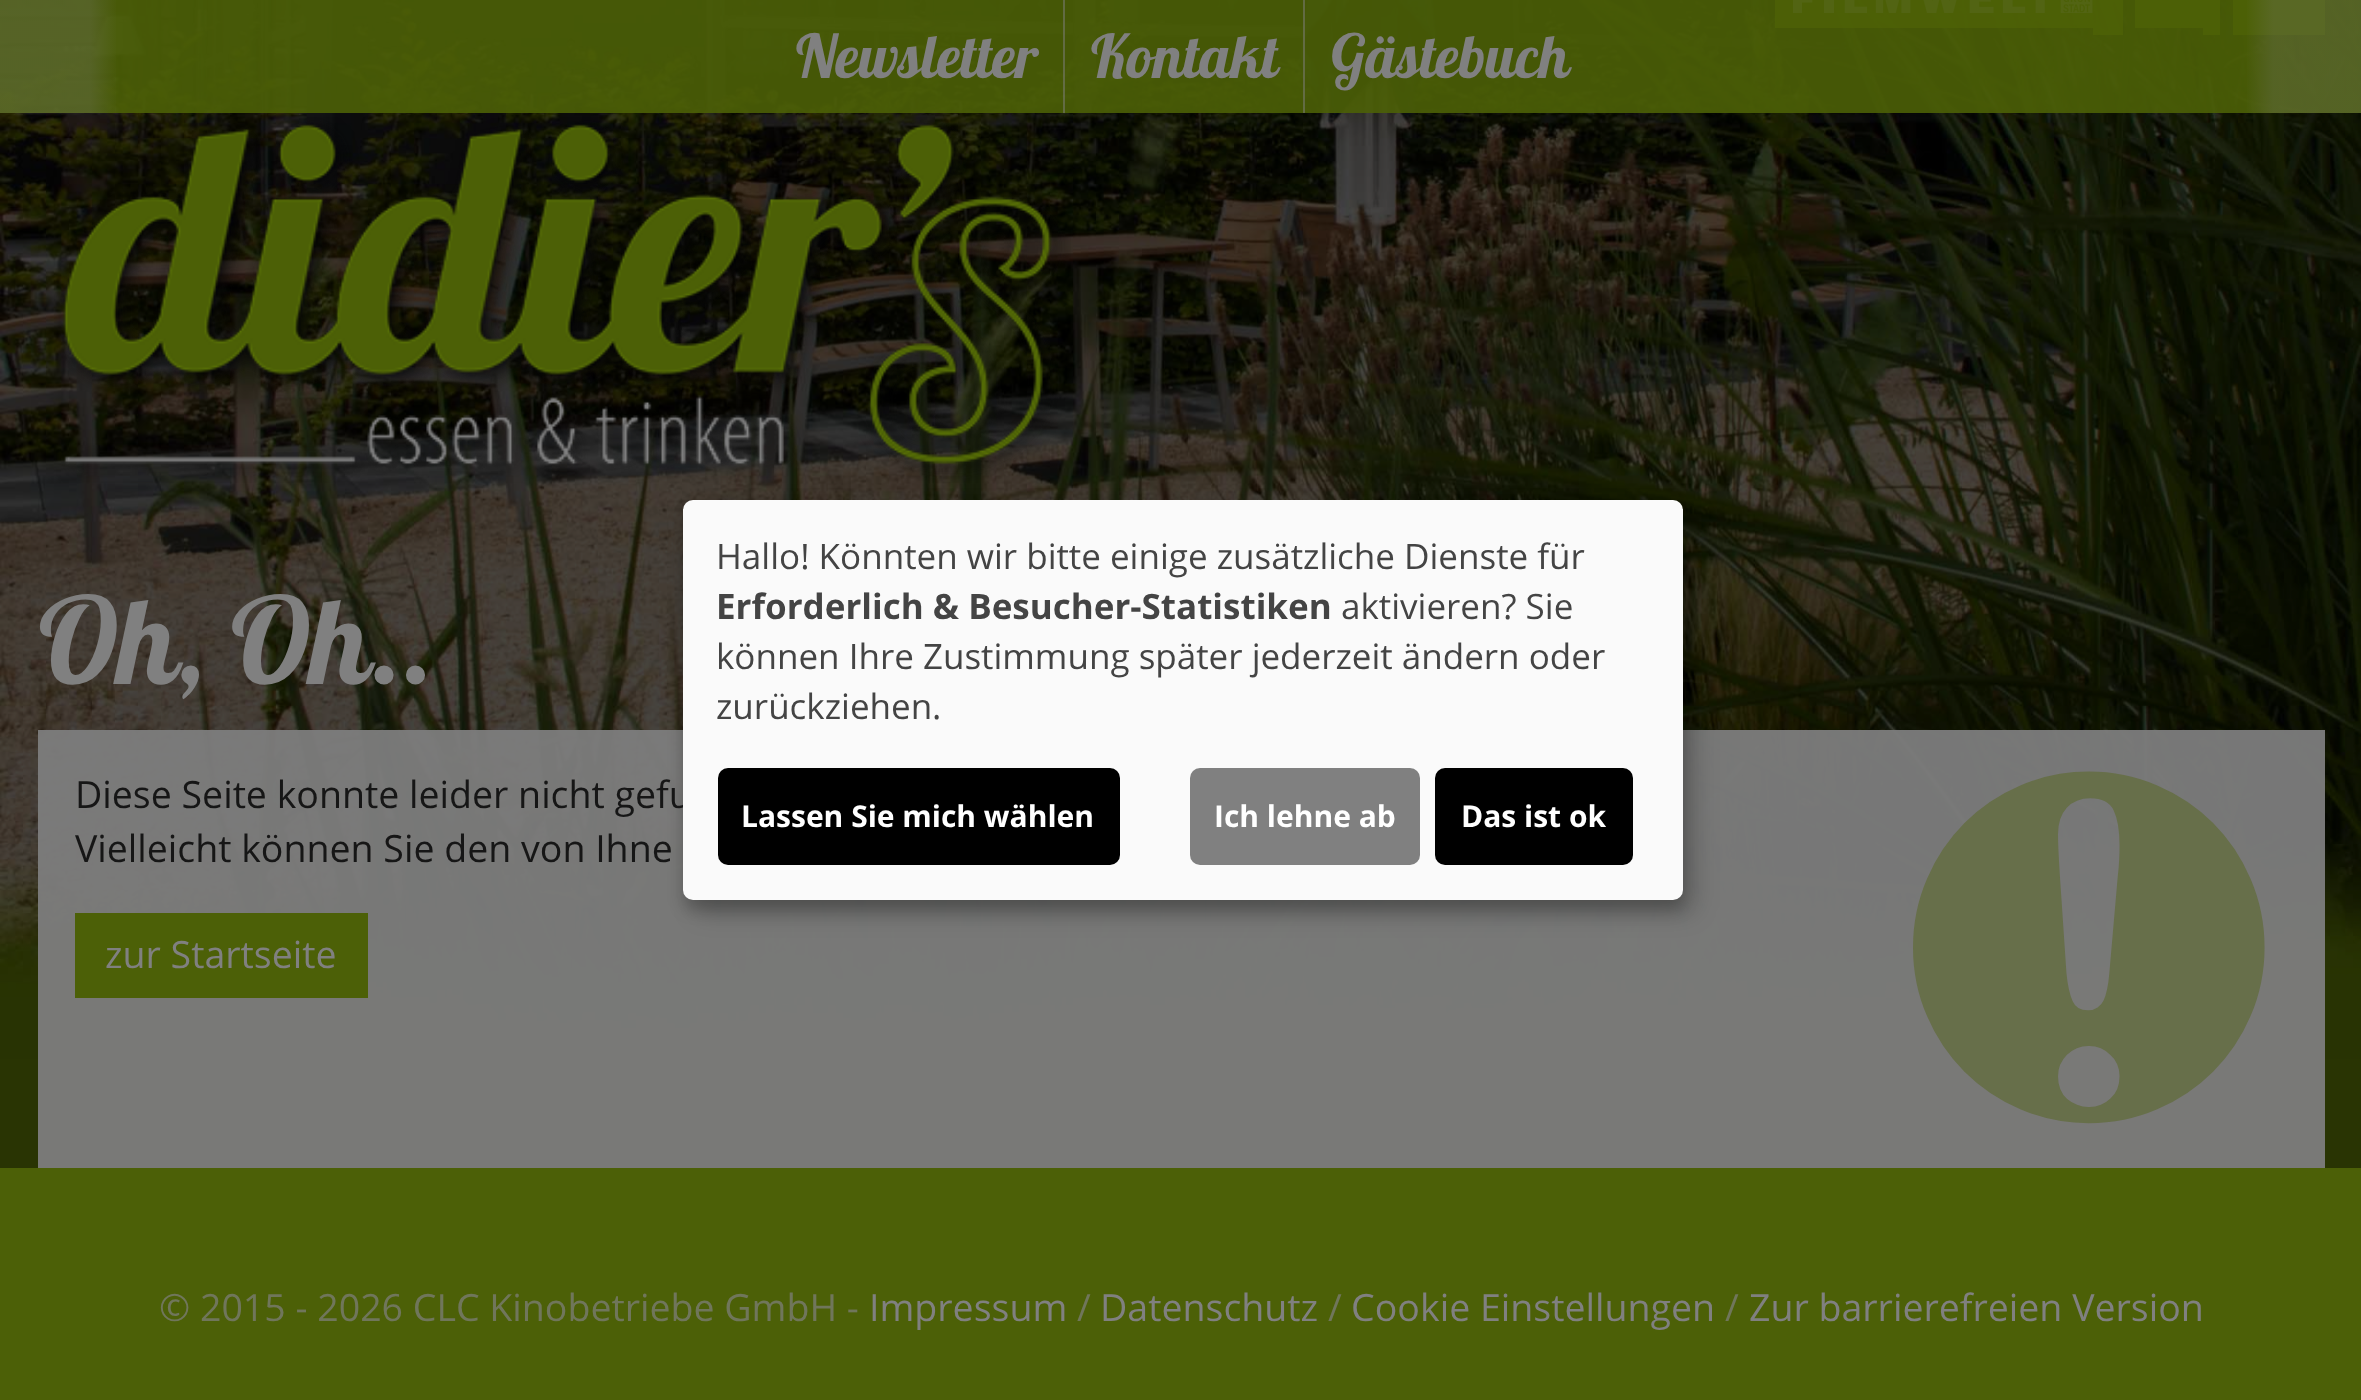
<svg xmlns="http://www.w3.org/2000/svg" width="2361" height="1400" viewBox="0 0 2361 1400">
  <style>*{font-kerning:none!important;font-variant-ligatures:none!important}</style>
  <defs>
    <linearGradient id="g1" gradientUnits="userSpaceOnUse" x1="0" y1="56" x2="118" y2="56"><stop offset="0.76" stop-color="#808080" stop-opacity="0.25"/><stop offset="1" stop-color="#808080" stop-opacity="0"/></linearGradient>
    <linearGradient id="g2" gradientUnits="userSpaceOnUse" x1="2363" y1="56" x2="2245" y2="56"><stop offset="0.76" stop-color="#808080" stop-opacity="0.25"/><stop offset="1" stop-color="#808080" stop-opacity="0"/></linearGradient>
  </defs>
  <rect width="100%" height="100%" fill="#4c6007"/>
  <image x="0" y="0" width="2361" height="1059" href="img/1.png"/>
  <path d="M0 0h2361v538H0z" fill="#00000073"/>
  <path d="M1775 0h318v28H1775z" fill="#4c6007e6"/>
  <image x="1793" y="0" width="300" height="13" href="img/2.png"/>
  <path d="M2093 0h30v35H2093z" fill="#4c6007e6"/>
  <path d="M2135 0h68v28H2135z" fill="#4c6007"/>
  <path d="M2203 0h17v35H2203z" fill="#4c6007"/>
  <path d="M2233 0h92v35H2233z" fill="#4c6007"/>
  <image x="54" y="117" width="1017" height="366" href="img/3.png"/>
  <path d="M0 0h2361v113H0z" fill="#4c6007e6"/>
  <path d="M0 0h116v113H0z" fill="url(#g1)"/>
  <path d="M1063 0h2v113H1063z" fill="#80808080"/>
  <path d="M1303 0h2v113H1303z" fill="#80808080"/>
  <path d="M2247 0h114v113H2247z" fill="url(#g2)"/>
  <path d="M0 538h2361v630H0z" fill="#00000073"/>
  <path d="M38 730h2287v438H38z" fill="#7d7d7df2"/>
  <path d="M75 913h293v85H75z" fill="#4c6007"/>
  <rect x="695" y="513" width="1000" height="400" rx="10" fill="#00000030" filter="blur(12.5px)"/>
  <rect x="683" y="510" width="1000" height="400" rx="10" fill="#00000033" filter="blur(7.5px)"/>
  <g font-family="Lobster" font-size="60" fill="#808080">
    <text x="796" y="78">Newsletter</text>
    <text x="1091" y="78">Kontakt</text>
    <text x="1331" y="78">Gästebuch</text>
  </g>
  <text x="38" y="684" font-family="Lobster" font-size="120" fill="#808080">Oh, Oh..</text>
  <g font-family="Open Sans" font-size="37.5" fill="#161616">
    <text x="75" y="808">Diese Seite konnte leider nicht gefu</text>
    <text x="75" y="862">Vielleicht können Sie den von Ihne</text>
  </g>
  <text x="1913" y="1088" font-family="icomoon" font-size="375" fill="#676f4a">=</text>
  <text x="105" y="968" font-family="Open Sans" font-size="37.5" fill="#808080">zur Startseite</text>
  <text x="159" y="1321" font-family="Open Sans" font-size="37.5" fill="#70765b">© 2015 - 2026 CLC Kinobetriebe GmbH -</text>
  <text x="869" y="1321" font-family="Open Sans" font-size="37.5" fill="#808080">Impressum</text>
  <text x="1077" y="1321" font-family="Open Sans" font-size="37.5" fill="#70765b">/</text>
  <text x="1100" y="1321" font-family="Open Sans" font-size="37.5" fill="#808080">Datenschutz</text>
  <text x="1328" y="1321" font-family="Open Sans" font-size="37.5" fill="#70765b">/</text>
  <text x="1351" y="1321" font-family="Open Sans" font-size="37.5" fill="#808080">Cookie Einstellungen</text>
  <text x="1725" y="1321" font-family="Open Sans" font-size="37.5" fill="#70765b">/</text>
  <text x="1749" y="1321" font-family="Open Sans" font-size="37.5" fill="#808080">Zur barrierefreien Version</text>
  <rect x="683" y="500" width="1000" height="400" rx="10" fill="#fafafa"/>
  <text x="716" y="569" font-family="Open Sans" font-size="35" fill="#444">Hallo! Könnten wir bitte einige zusätzliche Dienste für</text>
  <text x="716" y="619" font-family="Open Sans" font-size="35" font-weight="bold" fill="#444">Erforderlich &amp; Besucher-Statistiken</text>
  <g font-family="Open Sans" font-size="35" fill="#444">
    <text x="1341" y="619">aktivieren? Sie</text>
    <text x="716" y="669">können Ihre Zustimmung später jederzeit ändern oder</text>
    <text x="716" y="719">zurückziehen.</text>
  </g>
  <rect x="718" y="768" width="402" height="97" rx="10" fill="#000"/>
  <text x="741" y="827" font-family="Open Sans" font-size="30" font-weight="bold" fill="#fff">Lassen Sie mich wählen</text>
  <rect x="1190" y="768" width="230" height="97" rx="10" fill="#808080"/>
  <text x="1214" y="827" font-family="Open Sans" font-size="30" font-weight="bold" fill="#fff">Ich lehne ab</text>
  <rect x="1435" y="768" width="198" height="97" rx="10" fill="#000"/>
  <text x="1461" y="827" font-family="Open Sans" font-size="30" font-weight="bold" fill="#fff">Das ist ok</text>
</svg>
